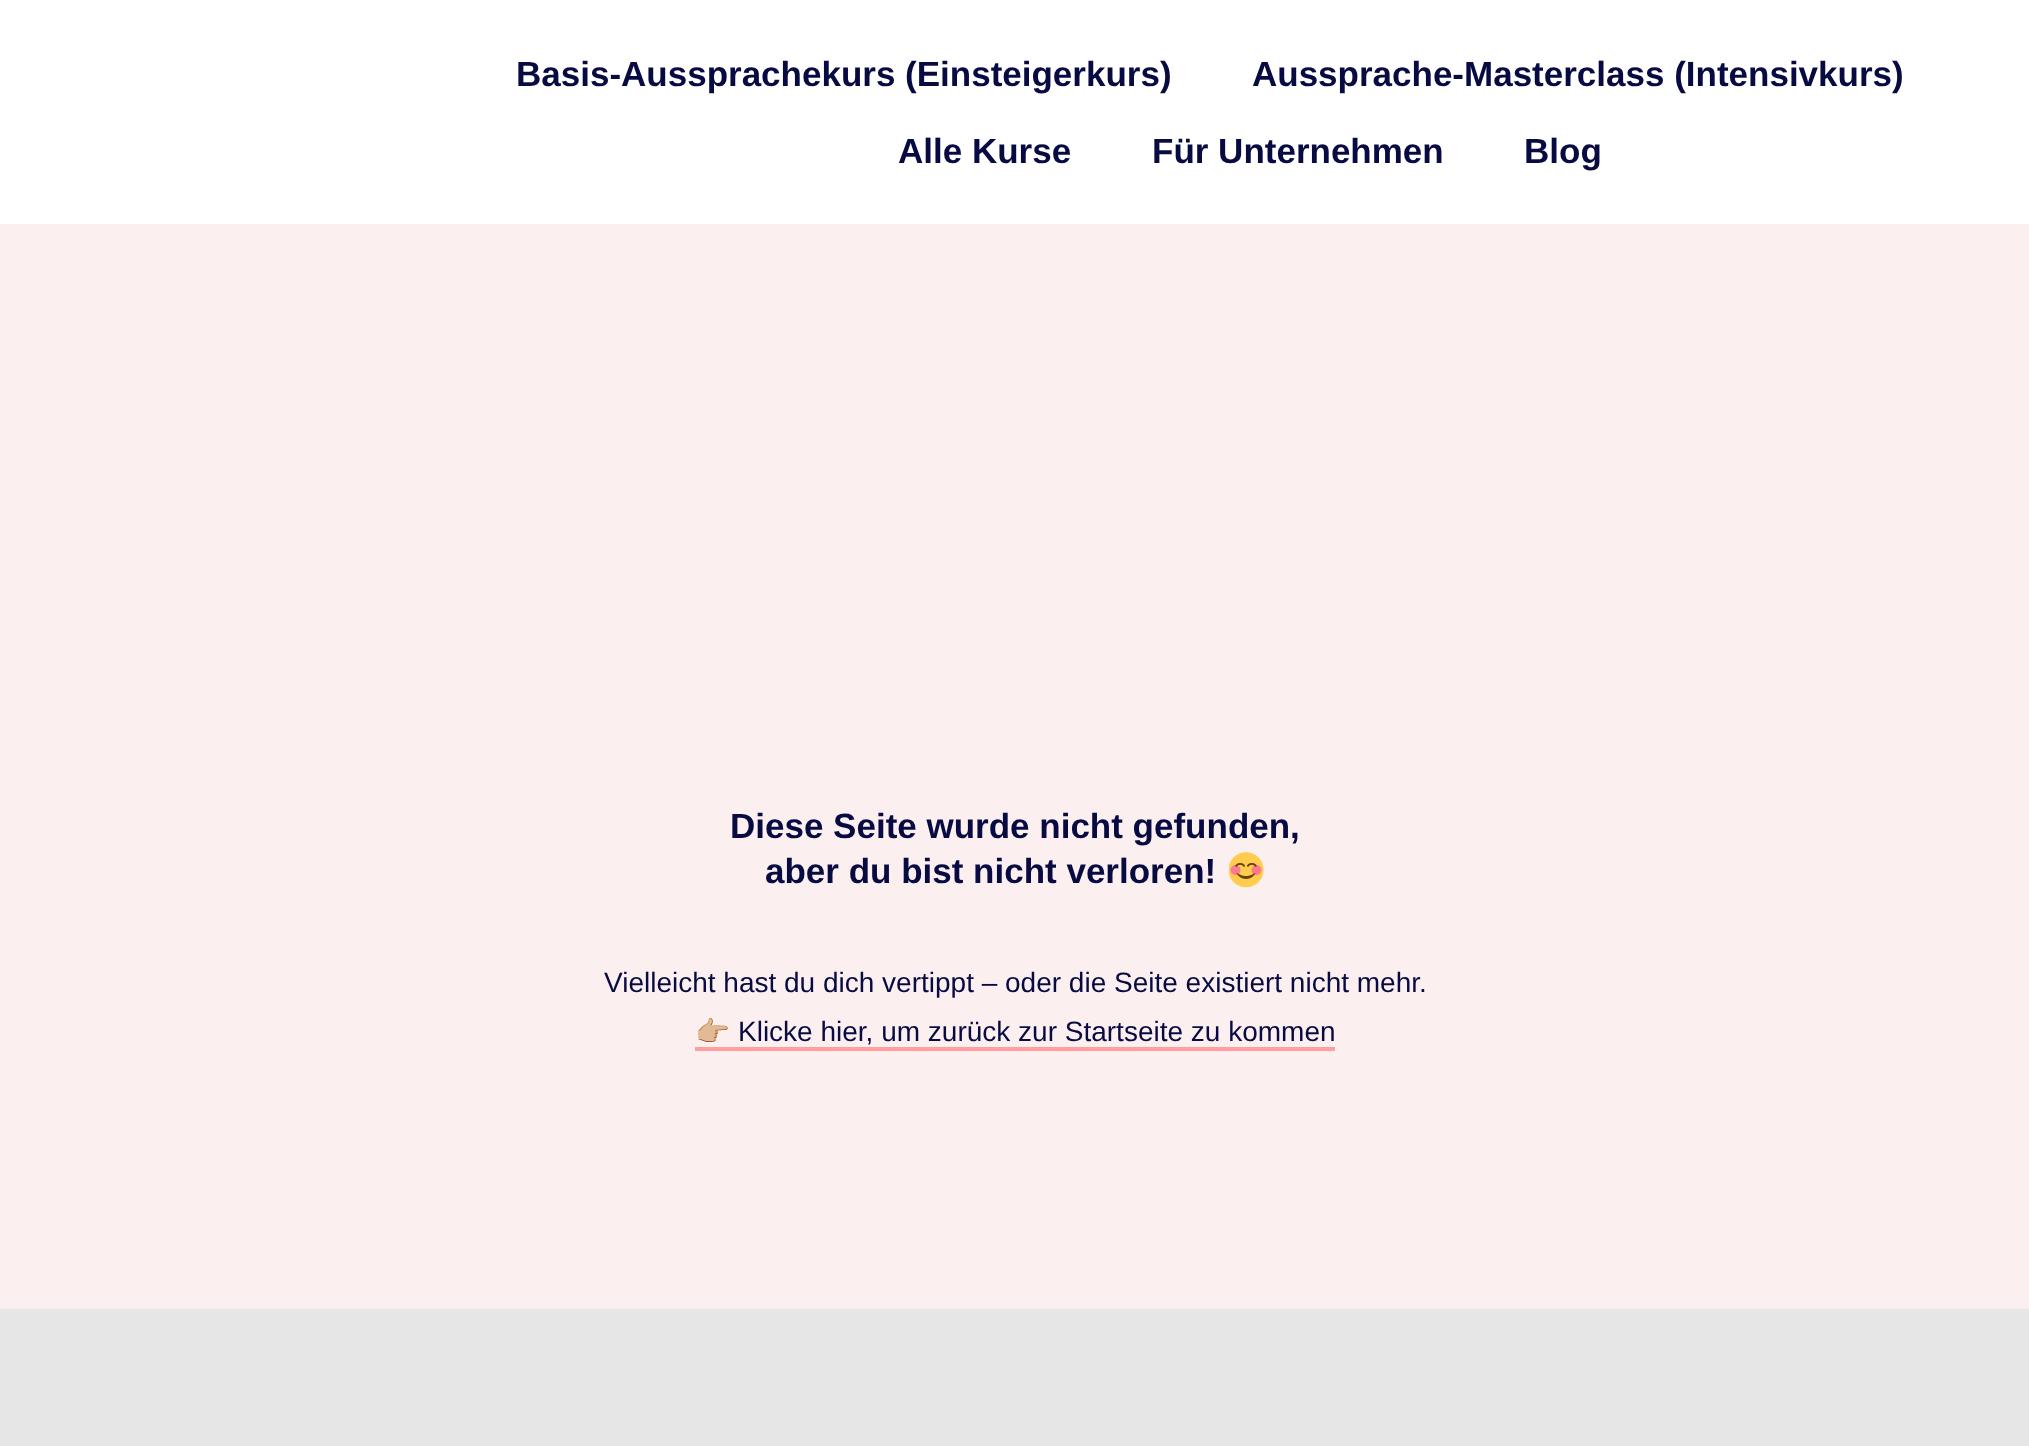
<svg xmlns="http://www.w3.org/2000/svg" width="2029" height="1446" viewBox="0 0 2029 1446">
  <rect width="100%" height="100%" fill="#fbefef"/>
  <path d="M0 0h2029v224H0z" fill="#fff"/>
  <image x="1229" y="852" width="35" height="35" href="img/1.png"/>
  <path d="M695 1047h640v4H695z" fill="#ff9e9e"/>
  <path d="M0 1309h2029v137H0z" fill="#e6e6e6"/>
  <g font-family="Liberation Sans" font-size="35" font-weight="bold" fill="#080b42">
    <text x="516" y="86">Basis-Aussprachekurs (Einsteigerkurs)</text>
    <text x="1252" y="86">Aussprache-Masterclass (Intensivkurs)</text>
    <text x="898" y="163">Alle Kurse</text>
    <text x="1152" y="163">Für Unternehmen</text>
    <text x="1524" y="163">Blog</text>
    <text x="730" y="838">Diese Seite wurde nicht gefunden,</text>
    <text x="765" y="883">aber du bist nicht verloren!</text>
  </g>
  <text x="604" y="992" font-family="Liberation Sans" font-size="28" fill="#080b42">Vielleicht hast du dich vertippt – oder die Seite existiert nicht mehr.</text>
  <text x="695" y="1041" font-family="Noto Color Emoji" font-size="28" fill="#080b42">👉🏼</text>
  <text x="738" y="1041" font-family="Liberation Sans" font-size="28" fill="#080b42">Klicke hier, um zurück zur Startseite zu kommen</text>
</svg>
